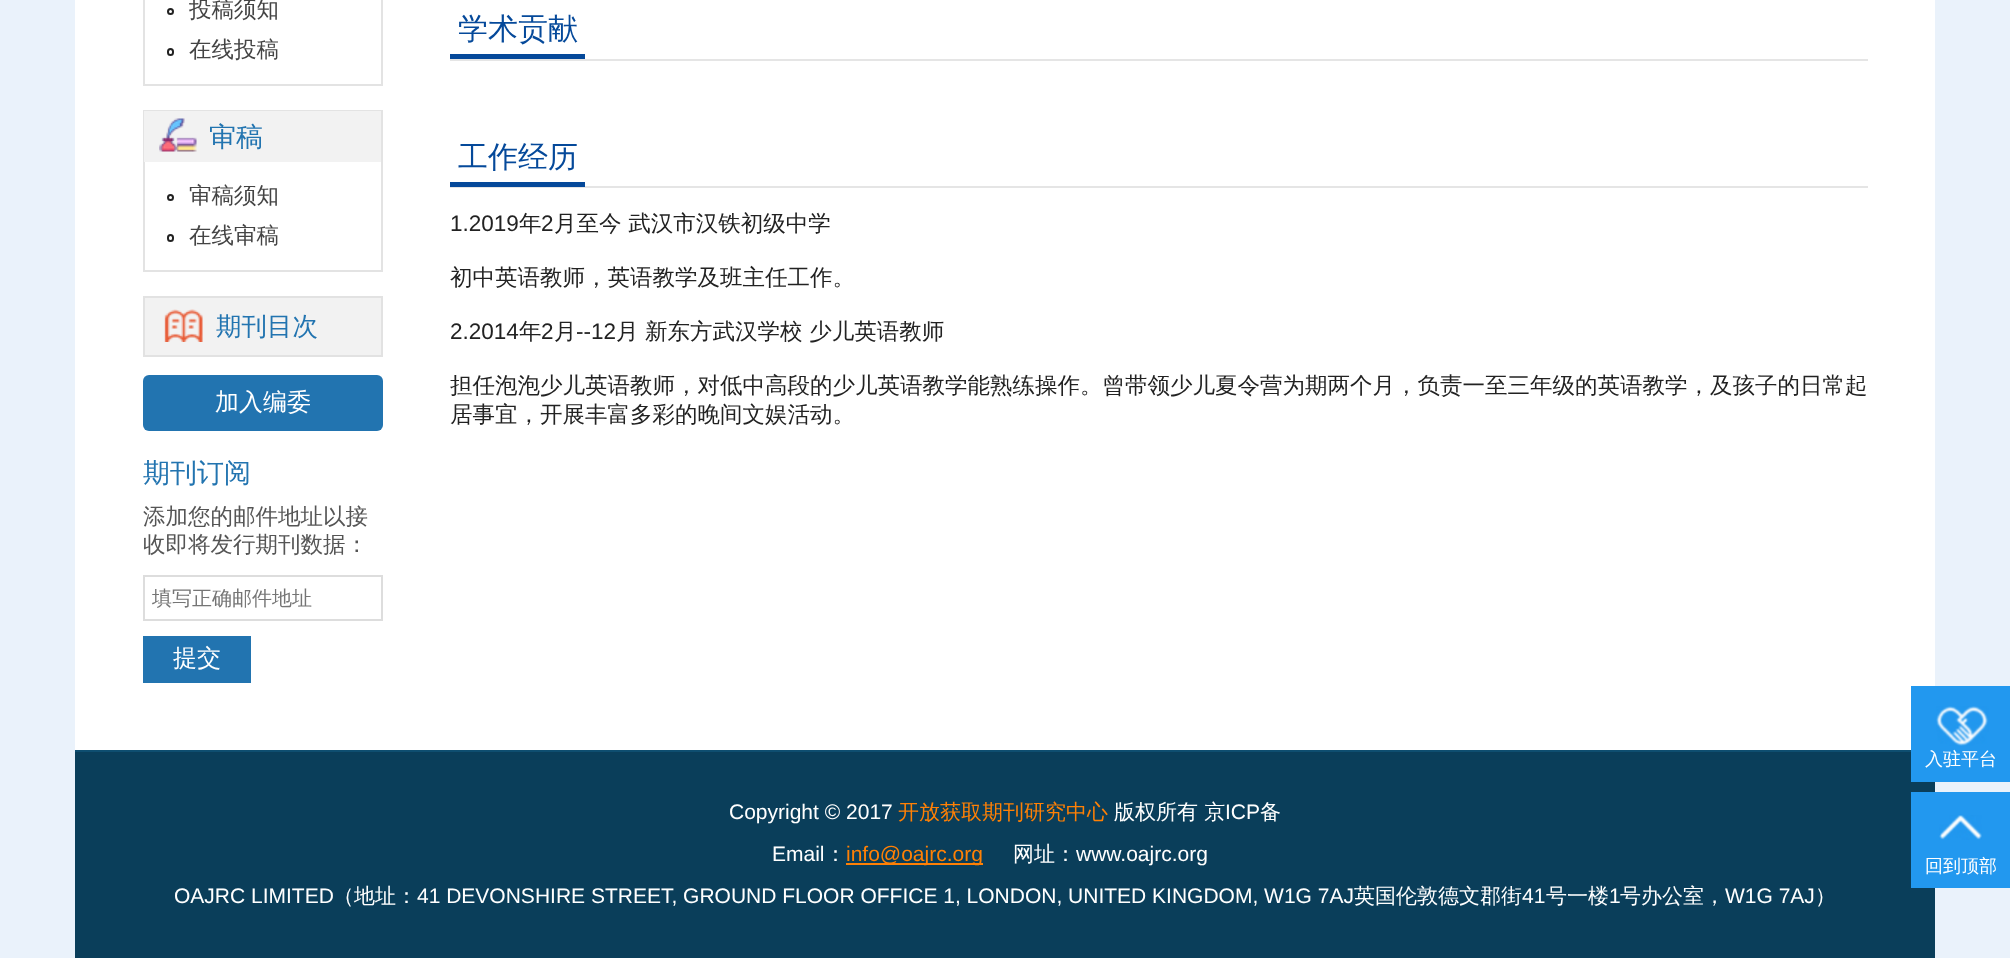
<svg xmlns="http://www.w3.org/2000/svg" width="2010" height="958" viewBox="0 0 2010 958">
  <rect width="100%" height="100%" fill="#eaf2fb"/>
  <path d="M75 0h1860v750H75z" fill="#fff"/>
  <path d="M144 -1h238v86H144z" fill="none" stroke="#e3e3e3" stroke-width="2"/>
  <circle cx="170.5" cy="11.5" r="2.5" fill="none" stroke="#222" stroke-width="2"/>
  <rect x="168" y="49" width="5" height="6" rx="2.5" fill="none" stroke="#222" stroke-width="2"/>
  <path d="M144 111h238v160H144z" fill="none" stroke="#e3e3e3" stroke-width="2"/>
  <path d="M144 111h237v51H144z" fill="#f2f2f2"/>
  <image x="159" y="118" width="38" height="34" href="img/1.png"/>
  <circle cx="170.5" cy="197.5" r="2.5" fill="none" stroke="#222" stroke-width="2"/>
  <rect x="168" y="235" width="5" height="6" rx="2.5" fill="none" stroke="#222" stroke-width="2"/>
  <path d="M144 297h238v59H144z" fill="#f2f2f2" stroke="#e2e2e2" stroke-width="2"/>
  <image x="164" y="309" width="39" height="33" href="img/2.png"/>
  <rect x="143" y="375" width="240" height="56" rx="6" fill="#2274b0"/>
  <path d="M144 576h238v44H144z" fill="none" stroke="#ddd" stroke-width="2"/>
  <path d="M143 636h108v47H143z" fill="#2274b0"/>
  <path d="M450 59h1418v2H450z" fill="#e5e5e5"/>
  <path d="M450 54h135v5H450z" fill="#05499a"/>
  <path d="M450 186h1418v2H450z" fill="#e5e5e5"/>
  <path d="M450 182h135v5H450z" fill="#05499a"/>
  <path d="M75 752h1860v206H75z" fill="#0a3e5a"/>
  <path d="M75 750h1836v2H75z" fill="#0e4e70"/>
  <path d="M846 863h137v2H846z" fill="#ff8005"/>
  <path d="M1911 686h99v96H1911z" fill="#2298ef"/>
  <image x="1936" y="706" width="53" height="40" href="img/3.png"/>
  <path d="M1911 792h99v96H1911z" fill="#2298ef"/>
  <image x="1939" y="815" width="43" height="25" href="img/4.png"/>
  <g font-family="WenQuanYi Zen Hei" font-size="22.5" font-weight="500" fill="#444">
    <text x="189" y="17">投稿须知</text>
    <text x="189" y="57">在线投稿</text>
  </g>
  <text x="209" y="146" font-family="WenQuanYi Zen Hei" font-size="27" font-weight="500" fill="#2274b0">审稿</text>
  <g font-family="WenQuanYi Zen Hei" font-size="22.5" font-weight="500" fill="#444">
    <text x="189" y="203">审稿须知</text>
    <text x="189" y="243">在线审稿</text>
  </g>
  <text x="216" y="335" font-family="WenQuanYi Zen Hei" font-size="25.5" font-weight="500" fill="#2274b0">期刊目次</text>
  <text x="215" y="410" font-family="WenQuanYi Zen Hei" font-size="24" font-weight="500" fill="#fff">加入编委</text>
  <text x="143" y="482" font-family="WenQuanYi Zen Hei" font-size="27" font-weight="500" fill="#2274b0">期刊订阅</text>
  <g font-family="WenQuanYi Zen Hei" font-size="22.5" font-weight="500" fill="#555">
    <text x="143" y="524">添加您的邮件地址以接</text>
    <text x="143" y="552">收即将发行期刊数据：</text>
  </g>
  <text x="152" y="605" font-family="WenQuanYi Zen Hei" font-size="20" font-weight="500" fill="#757575">填写正确邮件地址</text>
  <text x="173" y="666" font-family="WenQuanYi Zen Hei" font-size="24" font-weight="500" fill="#fff">提交</text>
  <g font-family="WenQuanYi Zen Hei" font-size="30" font-weight="500" fill="#05499a">
    <text x="458" y="39">学术贡献</text>
    <text x="458" y="167">工作经历</text>
  </g>
  <text x="450" y="231" font-family="Liberation Sans" font-size="22.5" fill="#222">1.2019</text>
  <text x="519" y="231" font-family="WenQuanYi Zen Hei" font-size="22.5" font-weight="500" fill="#222">年</text>
  <text x="541" y="231" font-family="Liberation Sans" font-size="22.5" fill="#222">2</text>
  <g font-family="WenQuanYi Zen Hei" font-size="22.5" font-weight="500" fill="#222">
    <text x="554" y="231">月至今 武汉市汉铁初级中学</text>
    <text x="450" y="285">初中英语教师，英语教学及班主任工作。</text>
  </g>
  <text x="450" y="339" font-family="Liberation Sans" font-size="22.5" fill="#222">2.2014</text>
  <text x="519" y="339" font-family="WenQuanYi Zen Hei" font-size="22.5" font-weight="500" fill="#222">年</text>
  <text x="541" y="339" font-family="Liberation Sans" font-size="22.5" fill="#222">2</text>
  <text x="554" y="339" font-family="WenQuanYi Zen Hei" font-size="22.5" font-weight="500" fill="#222">月</text>
  <text x="576" y="339" font-family="Liberation Sans" font-size="22.5" fill="#222">--12</text>
  <g font-family="WenQuanYi Zen Hei" font-size="22.5" font-weight="500" fill="#222">
    <text x="616" y="339">月</text>
    <text x="645" y="339">新东方武汉学校 少儿英语教师</text>
    <text x="450" y="393">担任泡泡少儿英语教师，对低中高段的少儿英语教学能熟练操作。曾带领少儿夏令营为期两个月，负责一至三年级的英语教学，及孩子的日常起</text>
    <text x="450" y="422">居事宜，开展丰富多彩的晚间文娱活动。</text>
  </g>
  <text x="729" y="819" font-family="Liberation Sans" font-size="21" fill="#fff">Copyright © 2017</text>
  <text x="898" y="819" font-family="WenQuanYi Zen Hei" font-size="21" font-weight="500" fill="#ff8005">开放获取期刊研究中心</text>
  <text x="1114" y="819" font-family="WenQuanYi Zen Hei" font-size="21" font-weight="500" fill="#fff">版权所有 京</text>
  <text x="1225" y="819" font-family="Liberation Sans" font-size="21" fill="#fff">ICP</text>
  <text x="1260" y="819" font-family="WenQuanYi Zen Hei" font-size="21" font-weight="500" fill="#fff">备</text>
  <text x="772" y="861" font-family="Liberation Sans" font-size="21" fill="#fff">Email</text>
  <text x="825" y="861" font-family="WenQuanYi Zen Hei" font-size="21" font-weight="500" fill="#fff">：</text>
  <text x="846" y="861" font-family="Liberation Sans" font-size="21" fill="#ff8005">info@oajrc.org</text>
  <text x="1013" y="861" font-family="WenQuanYi Zen Hei" font-size="21" font-weight="500" fill="#fff">网址：</text>
  <g font-family="Liberation Sans" font-size="21" fill="#fff">
    <text x="1076" y="861">www.oajrc.org</text>
    <text x="174" y="903">OAJRC LIMITED</text>
  </g>
  <text x="333" y="903" font-family="WenQuanYi Zen Hei" font-size="21" font-weight="500" fill="#fff">（地址：</text>
  <text x="417" y="903" font-family="Liberation Sans" font-size="21" fill="#fff">41 DEVONSHIRE STREET, GROUND FLOOR OFFICE 1, LONDON, UNITED KINGDOM, W1G 7AJ</text>
  <text x="1354" y="903" font-family="WenQuanYi Zen Hei" font-size="21" font-weight="500" fill="#fff">英国伦敦德文郡街</text>
  <text x="1522" y="903" font-family="Liberation Sans" font-size="21" fill="#fff">41</text>
  <text x="1546" y="903" font-family="WenQuanYi Zen Hei" font-size="21" font-weight="500" fill="#fff">号一楼</text>
  <text x="1609" y="903" font-family="Liberation Sans" font-size="21" fill="#fff">1</text>
  <text x="1620" y="903" font-family="WenQuanYi Zen Hei" font-size="21" font-weight="500" fill="#fff">号办公室，</text>
  <text x="1725" y="903" font-family="Liberation Sans" font-size="21" fill="#fff">W1G 7AJ</text>
  <text x="1815" y="903" font-family="WenQuanYi Zen Hei" font-size="21" font-weight="500" fill="#fff">）</text>
  <g font-family="WenQuanYi Zen Hei" font-size="18" font-weight="500" fill="#fff">
    <text x="1925" y="765">入驻平台</text>
    <text x="1925" y="872">回到顶部</text>
  </g>
</svg>
